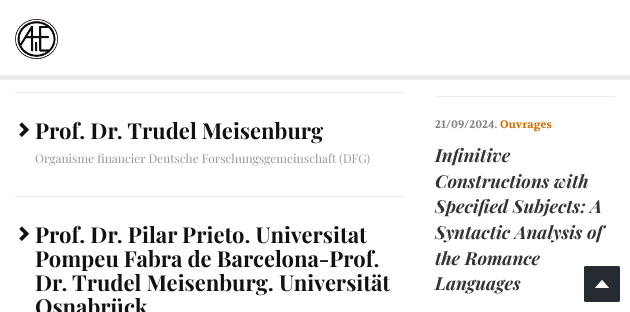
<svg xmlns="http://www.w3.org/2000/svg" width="630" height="312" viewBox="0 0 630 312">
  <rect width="100%" height="100%" fill="#fff"/>
  <path d="M0 75h630v5H0z" fill="#ececec"/>
  <image x="15" y="19" width="43" height="40" href="img/1.png"/>
  <path d="M15 92h390v1H15z" fill="#ededed"/>
  <path d="M15 196h390v1H15z" fill="#ededed"/>
  <image x="19" y="122" width="11" height="15" href="img/2.png"/>
  <image x="19" y="226" width="11" height="15" href="img/2.png"/>
  <path d="M435 96h180v1H435z" fill="#ededed"/>
  <image x="584" y="266" width="36" height="36" href="img/3.png"/>
  <text x="35" y="139" font-family="Playfair Display" font-size="22" font-weight="bold" fill="#111">Prof. Dr. Trudel Meisenburg</text>
  <text x="35" y="163" font-family="Playfair Display" font-size="12" fill="#999">Organisme financier Deutsche Forschungsgemeinschaft (DFG)</text>
  <g font-family="Playfair Display" font-size="22" font-weight="bold" fill="#111">
    <text x="35" y="243">Prof. Dr. Pilar Prieto. Universitat</text>
    <text x="35" y="267">Pompeu Fabra de Barcelona-Prof.</text>
    <text x="35" y="291">Dr. Trudel Meisenburg. Universität</text>
    <text x="35" y="315">Osnabrück</text>
  </g>
  <text x="435" y="128" font-family="Volkhov" font-size="11" font-weight="bold" fill="#868686">21/09/2024.</text>
  <text x="500" y="128" font-family="Volkhov" font-size="11" font-weight="bold" fill="#d86c00">Ouvrages</text>
  <g font-family="Playfair Display" font-size="18" font-weight="bold" font-style="italic" fill="#333">
    <text x="435" y="162">Infinitive</text>
    <text x="435" y="188">Constructions with</text>
    <text x="435" y="213">Specified Subjects: A</text>
    <text x="435" y="239">Syntactic Analysis of</text>
    <text x="435" y="265">the Romance</text>
    <text x="435" y="290">Languages</text>
  </g>
</svg>
